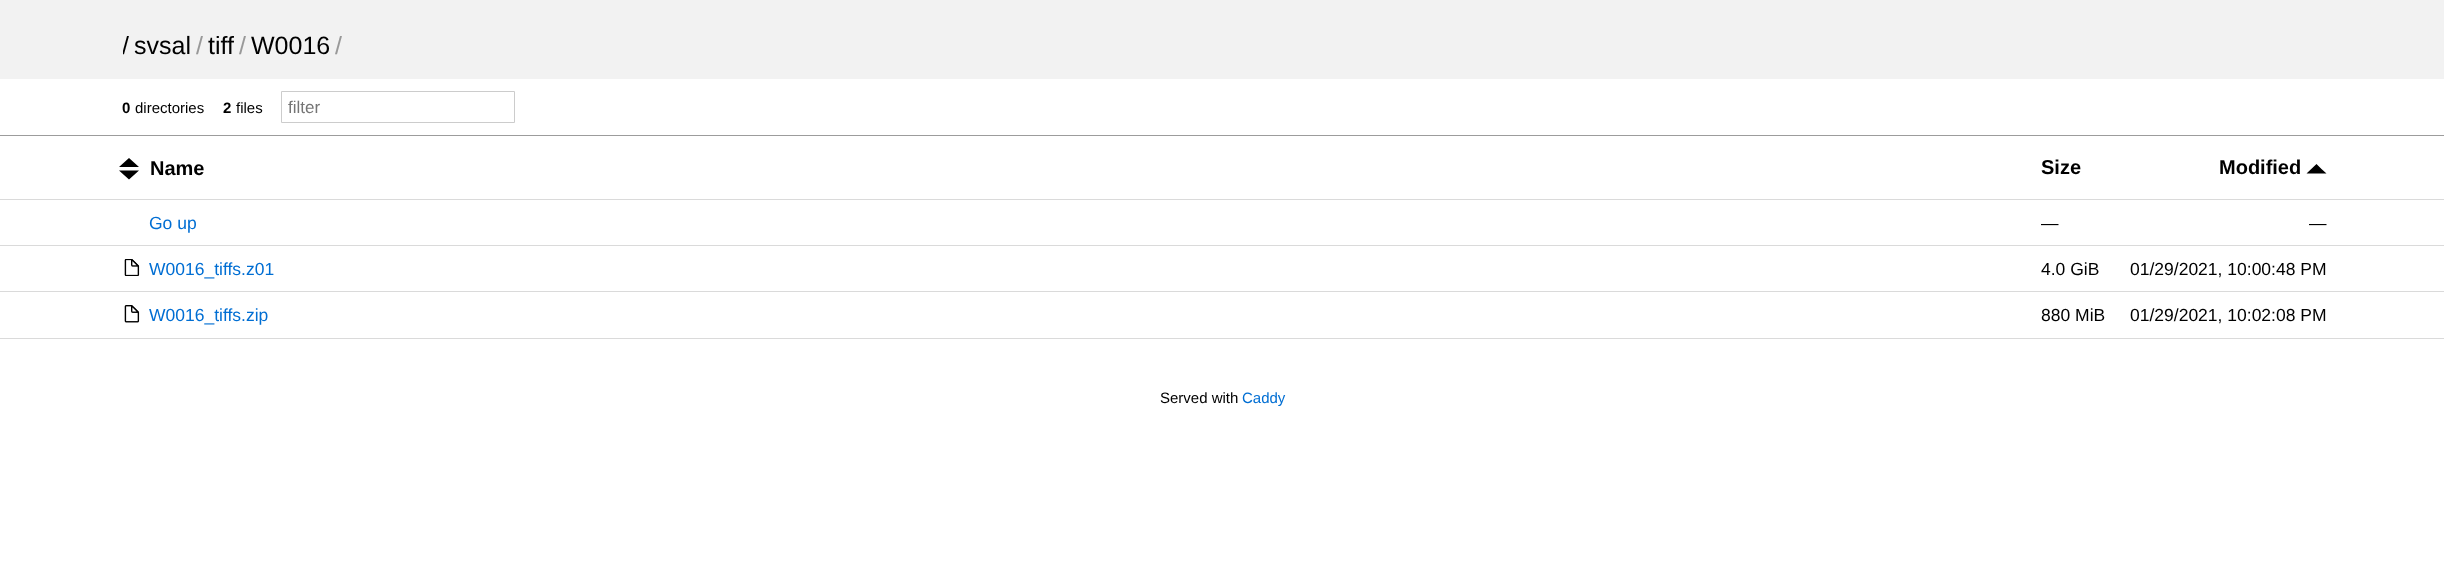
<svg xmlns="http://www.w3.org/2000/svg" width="2444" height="564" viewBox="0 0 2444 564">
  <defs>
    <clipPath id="clip1"><path d="M123 31h2200v29H123z"/></clipPath>
  </defs>
  <rect width="100%" height="100%" fill="#fff"/>
  <path d="M0 0h2444v79H0z" fill="#f2f2f2"/>
  <path d="M0 135h2444v1H0z" fill="#9c9c9c"/>
  <path d="M281.5 91.5h233v31H281.5z" fill="none" stroke="#ccc"/>
  <path d="M0 199h2444v1H0z" fill="#dadada"/>
  <path d="M139 167H119L129 158L134 162.5ZM139 170.5H119L129 179.5L134 175Z" fill="#000"/>
  <path d="M2326.5 173.5H2306.5L2316.5 164L2321.5 169Z" fill="#000"/>
  <path d="M0 245h2444v1H0z" fill="#dadada"/>
  <path d="M0 291h2444v1H0z" fill="#dadada"/>
  <image x="124" y="259" width="16" height="17" href="img/1.png"/>
  <path d="M0 338h2444v1H0z" fill="#dadada"/>
  <image x="124" y="305" width="16" height="18" href="img/2.png"/>
  <g clip-path="url(#clip1)">
    <text x="122" y="54" font-family="Liberation Sans" font-size="25" fill="#000">/</text>
  </g>
  <text x="134" y="54" font-family="Liberation Sans" font-size="25" fill="#000">svsal</text>
  <text x="196" y="54" font-family="Liberation Sans" font-size="25" fill="#999">/</text>
  <text x="208" y="54" font-family="Liberation Sans" font-size="25" fill="#000">tiff</text>
  <text x="239" y="54" font-family="Liberation Sans" font-size="25" fill="#999">/</text>
  <text x="251" y="54" font-family="Liberation Sans" font-size="25" fill="#000">W0016</text>
  <text x="335" y="54" font-family="Liberation Sans" font-size="25" fill="#999">/</text>
  <text x="122" y="113" font-family="Liberation Sans" font-size="15" font-weight="bold" fill="#000">0</text>
  <text x="135" y="113" font-family="Liberation Sans" font-size="15" fill="#000">directories</text>
  <text x="223" y="113" font-family="Liberation Sans" font-size="15" font-weight="bold" fill="#000">2</text>
  <text x="236" y="113" font-family="Liberation Sans" font-size="15" fill="#000">files</text>
  <text x="288" y="113" font-family="Liberation Sans" font-size="17" fill="#757575">filter</text>
  <g font-family="Liberation Sans" font-size="20" font-weight="bold" fill="#000">
    <text x="150" y="175">Name</text>
    <text x="2041" y="174">Size</text>
    <text x="2219" y="174">Modified</text>
  </g>
  <text x="149" y="229" font-family="Liberation Sans" font-size="17.5" fill="#006ed3">Go up</text>
  <g font-family="Liberation Sans" font-size="17.5" fill="#000">
    <text x="2041" y="229">—</text>
    <text x="2309" y="229">—</text>
  </g>
  <text x="149" y="275" font-family="Liberation Sans" font-size="17.5" fill="#006ed3">W0016_tiffs.z01</text>
  <g font-family="Liberation Sans" font-size="17.5" fill="#000">
    <text x="2041" y="275">4.0 GiB</text>
    <text x="2130" y="275">01/29/2021, 10:00:48 PM</text>
  </g>
  <text x="149" y="321" font-family="Liberation Sans" font-size="17.5" fill="#006ed3">W0016_tiffs.zip</text>
  <g font-family="Liberation Sans" font-size="17.5" fill="#000">
    <text x="2041" y="321">880 MiB</text>
    <text x="2130" y="321">01/29/2021, 10:02:08 PM</text>
  </g>
  <text x="1160" y="403" font-family="Liberation Sans" font-size="15" fill="#000">Served with</text>
  <text x="1242" y="403" font-family="Liberation Sans" font-size="15" fill="#006ed3">Caddy</text>
</svg>
